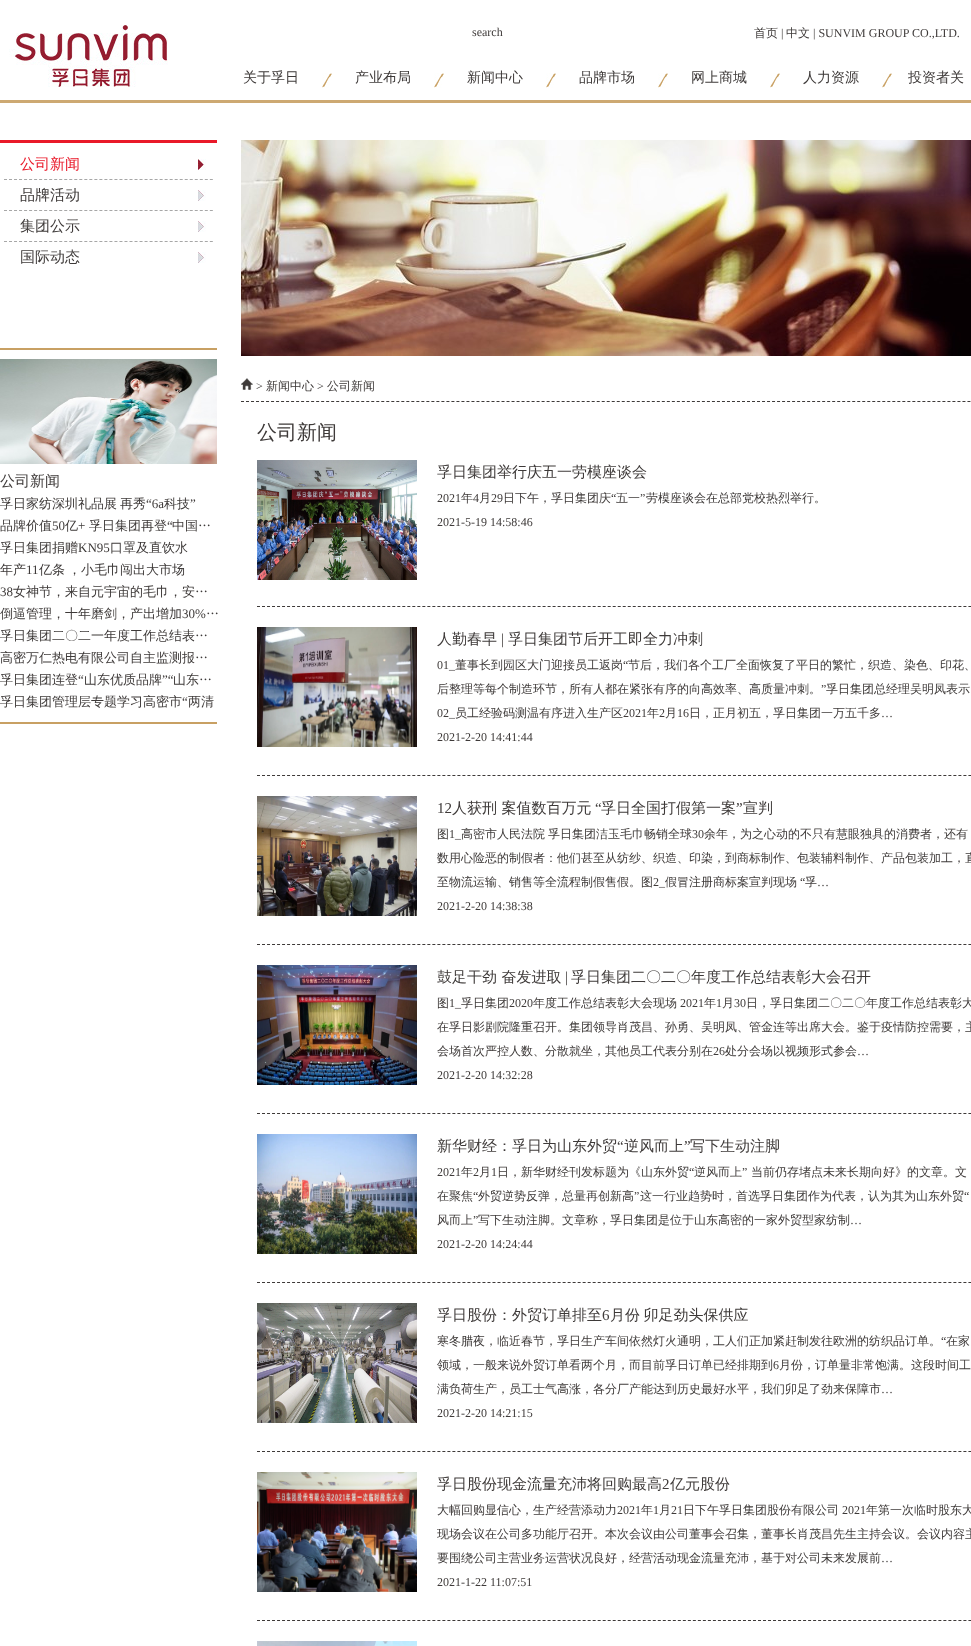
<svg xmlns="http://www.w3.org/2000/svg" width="971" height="1646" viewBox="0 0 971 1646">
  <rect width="100%" height="100%" fill="#fff"/>
  <path d="M0 100h971v3H0z" fill="#cda972"/>
  <image x="9" y="25" width="159" height="62" href="img/1.png"/>
  <image x="322" y="73" width="10" height="15" href="img/2.png"/>
  <image x="434" y="73" width="10" height="15" href="img/2.png"/>
  <image x="546" y="73" width="10" height="15" href="img/2.png"/>
  <image x="658" y="73" width="10" height="15" href="img/2.png"/>
  <image x="770" y="73" width="10" height="15" href="img/2.png"/>
  <image x="882" y="73" width="10" height="15" href="img/2.png"/>
  <path d="M0 140h217v3H0z" fill="#e91929"/>
  <path d="M4 179.5H213" fill="none" stroke="#a7a7a7" stroke-dasharray="3 2.02"/>
  <image x="198" y="159" width="8" height="11" href="img/3.png"/>
  <path d="M4 210.5H213" fill="none" stroke="#a7a7a7" stroke-dasharray="3 2.02"/>
  <image x="198" y="190" width="8" height="11" href="img/4.png"/>
  <path d="M4 241.5H213" fill="none" stroke="#a7a7a7" stroke-dasharray="3 2.02"/>
  <image x="198" y="221" width="8" height="11" href="img/4.png"/>
  <image x="198" y="252" width="8" height="11" href="img/4.png"/>
  <path d="M0 348h217v2H0z" fill="#c8a063"/>
  <path d="M0 722h217v2H0z" fill="#c8a063"/>
  <image x="0" y="359" width="217" height="105" href="img/5.png"/>
  <image x="241" y="140" width="730" height="216" href="img/6.png"/>
  <path d="M241 401.5H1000" fill="none" stroke="#3e3a39" stroke-dasharray="3 2.01"/>
  <image x="241" y="378" width="12" height="12" href="img/7.png"/>
  <path d="M257 606.5H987" fill="none" stroke="#3e3a39" stroke-dasharray="3 2.01"/>
  <image x="257" y="460" width="160" height="120" href="img/8.png"/>
  <path d="M257 775.5H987" fill="none" stroke="#3e3a39" stroke-dasharray="3 2.01"/>
  <image x="257" y="627" width="160" height="120" href="img/9.png"/>
  <path d="M257 944.5H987" fill="none" stroke="#3e3a39" stroke-dasharray="3 2.01"/>
  <image x="257" y="796" width="160" height="120" href="img/10.png"/>
  <path d="M257 1113.5H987" fill="none" stroke="#3e3a39" stroke-dasharray="3 2.01"/>
  <image x="257" y="965" width="160" height="120" href="img/11.png"/>
  <path d="M257 1282.5H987" fill="none" stroke="#3e3a39" stroke-dasharray="3 2.01"/>
  <image x="257" y="1134" width="160" height="120" href="img/12.png"/>
  <path d="M257 1451.5H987" fill="none" stroke="#3e3a39" stroke-dasharray="3 2.01"/>
  <image x="257" y="1303" width="160" height="120" href="img/13.png"/>
  <path d="M257 1620.5H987" fill="none" stroke="#3e3a39" stroke-dasharray="3 2.01"/>
  <image x="257" y="1472" width="160" height="120" href="img/14.png"/>
  <image x="257" y="1641" width="160" height="5" href="img/15.png"/>
  <text x="472" y="36" font-family="Liberation Serif" font-size="12" fill="#3e3a39">search</text>
  <text x="754" y="37" font-family="WenQuanYi Zen Hei" font-size="12" font-weight="500" fill="#3e3a39">首页</text>
  <text x="781" y="37" font-family="Liberation Serif" font-size="12" fill="#3e3a39">|</text>
  <text x="786" y="37" font-family="WenQuanYi Zen Hei" font-size="12" font-weight="500" fill="#3e3a39">中文</text>
  <text x="813" y="37" font-family="Liberation Serif" font-size="12" fill="#3e3a39">| SUNVIM GROUP CO.,LTD.</text>
  <g font-family="WenQuanYi Zen Hei" font-size="14" font-weight="500" fill="#3e3a39">
    <text x="243" y="82">关于孚日</text>
    <text x="355" y="82">产业布局</text>
    <text x="467" y="82">新闻中心</text>
    <text x="579" y="82">品牌市场</text>
    <text x="691" y="82">网上商城</text>
    <text x="803" y="82">人力资源</text>
    <text x="908" y="82">投资者关</text>
  </g>
  <text x="20" y="169" font-family="WenQuanYi Zen Hei" font-size="15" font-weight="500" fill="#e91929">公司新闻</text>
  <g font-family="WenQuanYi Zen Hei" font-size="15" font-weight="500" fill="#3e3a39">
    <text x="20" y="200">品牌活动</text>
    <text x="20" y="231">集团公示</text>
    <text x="20" y="262">国际动态</text>
    <text x="0" y="486">公司新闻</text>
  </g>
  <g font-family="WenQuanYi Zen Hei" font-size="13" font-weight="500" fill="#3e3a39">
    <text x="0" y="508">孚日家纺深圳礼品展</text>
    <text x="120" y="508">再秀</text>
  </g>
  <text x="146" y="508" font-family="Liberation Serif" font-size="13" fill="#3e3a39">“6a</text>
  <text x="164" y="508" font-family="WenQuanYi Zen Hei" font-size="13" font-weight="500" fill="#3e3a39">科技</text>
  <text x="190" y="508" font-family="Liberation Serif" font-size="13" fill="#3e3a39">”</text>
  <text x="0" y="530" font-family="WenQuanYi Zen Hei" font-size="13" font-weight="500" fill="#3e3a39">品牌价值</text>
  <text x="52" y="530" font-family="Liberation Serif" font-size="13" fill="#3e3a39">50</text>
  <text x="65" y="530" font-family="WenQuanYi Zen Hei" font-size="13" font-weight="500" fill="#3e3a39">亿</text>
  <text x="78" y="530" font-family="Liberation Serif" font-size="13" fill="#3e3a39">+</text>
  <text x="89" y="530" font-family="WenQuanYi Zen Hei" font-size="13" font-weight="500" fill="#3e3a39">孚日集团再登</text>
  <text x="167" y="530" font-family="Liberation Serif" font-size="13" fill="#3e3a39">“</text>
  <g font-family="WenQuanYi Zen Hei" font-size="13" font-weight="500" fill="#3e3a39">
    <text x="172" y="530">中国…</text>
    <text x="0" y="552">孚日集团捐赠</text>
  </g>
  <text x="78" y="552" font-family="Liberation Serif" font-size="13" fill="#3e3a39">KN95</text>
  <g font-family="WenQuanYi Zen Hei" font-size="13" font-weight="500" fill="#3e3a39">
    <text x="110" y="552">口罩及直饮水</text>
    <text x="0" y="574">年产</text>
  </g>
  <text x="26" y="574" font-family="Liberation Serif" font-size="13" fill="#3e3a39">11</text>
  <text x="39" y="574" word-spacing="-1" font-family="WenQuanYi Zen Hei" font-size="13" font-weight="500" fill="#3e3a39">亿条 ，小毛巾闯出大市场</text>
  <text x="0" y="596" font-family="Liberation Serif" font-size="13" fill="#3e3a39">38</text>
  <g font-family="WenQuanYi Zen Hei" font-size="13" font-weight="500" fill="#3e3a39">
    <text x="13" y="596">女神节，来自元宇宙的毛巾，安…</text>
    <text x="0" y="618">倒逼管理，十年磨剑，产出增加</text>
  </g>
  <text x="182" y="618" font-family="Liberation Serif" font-size="13" fill="#3e3a39">30%</text>
  <g font-family="WenQuanYi Zen Hei" font-size="13" font-weight="500" fill="#3e3a39">
    <text x="206" y="618">…</text>
    <text x="0" y="640">孚日集团二〇二一年度工作总结表…</text>
    <text x="0" y="662">高密万仁热电有限公司自主监测报…</text>
    <text x="0" y="684">孚日集团连登</text>
  </g>
  <text x="78" y="684" font-family="Liberation Serif" font-size="13" fill="#3e3a39">“</text>
  <text x="84" y="684" font-family="WenQuanYi Zen Hei" font-size="13" font-weight="500" fill="#3e3a39">山东优质品牌</text>
  <text x="162" y="684" font-family="Liberation Serif" font-size="13" fill="#3e3a39">”“</text>
  <g font-family="WenQuanYi Zen Hei" font-size="13" font-weight="500" fill="#3e3a39">
    <text x="173" y="684">山东…</text>
    <text x="0" y="706">孚日集团管理层专题学习高密市</text>
  </g>
  <text x="182" y="706" font-family="Liberation Serif" font-size="13" fill="#3e3a39">“</text>
  <text x="188" y="706" font-family="WenQuanYi Zen Hei" font-size="13" font-weight="500" fill="#3e3a39">两清</text>
  <text x="256" y="390" font-family="Liberation Serif" font-size="12" fill="#3e3a39">&gt;</text>
  <text x="266" y="390" font-family="WenQuanYi Zen Hei" font-size="12" font-weight="500" fill="#3e3a39">新闻中心</text>
  <text x="317" y="390" font-family="Liberation Serif" font-size="12" fill="#3e3a39">&gt;</text>
  <text x="327" y="390" font-family="WenQuanYi Zen Hei" font-size="12" font-weight="500" fill="#3e3a39">公司新闻</text>
  <text x="257" y="439" font-family="WenQuanYi Zen Hei" font-size="20" font-weight="500" fill="#3e3a39">公司新闻</text>
  <text x="437" y="477" font-family="WenQuanYi Zen Hei" font-size="15" font-weight="500" fill="#3e3a39">孚日集团举行庆五一劳模座谈会</text>
  <text x="437" y="502" font-family="Liberation Serif" font-size="12" fill="#3e3a39">2021</text>
  <text x="461" y="502" font-family="WenQuanYi Zen Hei" font-size="12" font-weight="500" fill="#3e3a39">年</text>
  <text x="473" y="502" font-family="Liberation Serif" font-size="12" fill="#3e3a39">4</text>
  <text x="479" y="502" font-family="WenQuanYi Zen Hei" font-size="12" font-weight="500" fill="#3e3a39">月</text>
  <text x="491" y="502" font-family="Liberation Serif" font-size="12" fill="#3e3a39">29</text>
  <text x="503" y="502" font-family="WenQuanYi Zen Hei" font-size="12" font-weight="500" fill="#3e3a39">日下午，孚日集团庆</text>
  <text x="611" y="502" font-family="Liberation Serif" font-size="12" fill="#3e3a39">“</text>
  <text x="616" y="502" font-family="WenQuanYi Zen Hei" font-size="12" font-weight="500" fill="#3e3a39">五一</text>
  <text x="640" y="502" font-family="Liberation Serif" font-size="12" fill="#3e3a39">”</text>
  <text x="646" y="502" font-family="WenQuanYi Zen Hei" font-size="12" font-weight="500" fill="#3e3a39">劳模座谈会在总部党校热烈举行。</text>
  <text x="437" y="526" font-family="Liberation Serif" font-size="12" fill="#3e3a39">2021-5-19 14:58:46</text>
  <text x="437" y="644" font-family="WenQuanYi Zen Hei" font-size="15" font-weight="500" fill="#3e3a39">人勤春早</text>
  <text x="501" y="644" font-family="Liberation Serif" font-size="15" fill="#3e3a39">|</text>
  <text x="508" y="644" font-family="WenQuanYi Zen Hei" font-size="15" font-weight="500" fill="#3e3a39">孚日集团节后开工即全力冲刺</text>
  <text x="437" y="669" font-family="Liberation Serif" font-size="12" fill="#3e3a39">01_</text>
  <text x="455" y="669" font-family="WenQuanYi Zen Hei" font-size="12" font-weight="500" fill="#3e3a39">董事长到园区大门迎接员工返岗</text>
  <text x="623" y="669" font-family="Liberation Serif" font-size="12" fill="#3e3a39">“</text>
  <g font-family="WenQuanYi Zen Hei" font-size="12" font-weight="500" fill="#3e3a39">
    <text x="628" y="669">节后，我们各个工厂全面恢复了平日的繁忙，织造、染色、印花、</text>
    <text x="437" y="693">后整理等每个制造环节，所有人都在紧张有序的向高效率、高质量冲刺。</text>
  </g>
  <text x="821" y="693" font-family="Liberation Serif" font-size="12" fill="#3e3a39">”</text>
  <text x="826" y="693" font-family="WenQuanYi Zen Hei" font-size="12" font-weight="500" fill="#3e3a39">孚日集团总经理吴明凤表示</text>
  <text x="437" y="717" font-family="Liberation Serif" font-size="12" fill="#3e3a39">02_</text>
  <text x="455" y="717" font-family="WenQuanYi Zen Hei" font-size="12" font-weight="500" fill="#3e3a39">员工经验码测温有序进入生产区</text>
  <text x="623" y="717" font-family="Liberation Serif" font-size="12" fill="#3e3a39">2021</text>
  <text x="647" y="717" font-family="WenQuanYi Zen Hei" font-size="12" font-weight="500" fill="#3e3a39">年</text>
  <text x="659" y="717" font-family="Liberation Serif" font-size="12" fill="#3e3a39">2</text>
  <text x="665" y="717" font-family="WenQuanYi Zen Hei" font-size="12" font-weight="500" fill="#3e3a39">月</text>
  <text x="677" y="717" font-family="Liberation Serif" font-size="12" fill="#3e3a39">16</text>
  <text x="689" y="717" font-family="WenQuanYi Zen Hei" font-size="12" font-weight="500" fill="#3e3a39">日，正月初五，孚日集团一万五千多</text>
  <g font-family="Liberation Serif" font-size="12" fill="#3e3a39">
    <text x="881" y="717">…</text>
    <text x="437" y="741">2021-2-20 14:41:44</text>
  </g>
  <text x="437" y="813" font-family="Liberation Serif" font-size="15" fill="#3e3a39">12</text>
  <text x="452" y="813" font-family="WenQuanYi Zen Hei" font-size="15" font-weight="500" fill="#3e3a39">人获刑 案值数百万元</text>
  <text x="595" y="813" font-family="Liberation Serif" font-size="15" fill="#3e3a39">“</text>
  <text x="601" y="813" font-family="WenQuanYi Zen Hei" font-size="15" font-weight="500" fill="#3e3a39">孚日全国打假第一案</text>
  <text x="736" y="813" font-family="Liberation Serif" font-size="15" fill="#3e3a39">”</text>
  <text x="743" y="813" font-family="WenQuanYi Zen Hei" font-size="15" font-weight="500" fill="#3e3a39">宣判</text>
  <text x="437" y="838" font-family="WenQuanYi Zen Hei" font-size="12" font-weight="500" fill="#3e3a39">图</text>
  <text x="449" y="838" font-family="Liberation Serif" font-size="12" fill="#3e3a39">1_</text>
  <g font-family="WenQuanYi Zen Hei" font-size="12" font-weight="500" fill="#3e3a39">
    <text x="461" y="838">高密市人民法院</text>
    <text x="548" y="838">孚日集团洁玉毛巾畅销全球</text>
  </g>
  <text x="692" y="838" font-family="Liberation Serif" font-size="12" fill="#3e3a39">30</text>
  <g font-family="WenQuanYi Zen Hei" font-size="12" font-weight="500" fill="#3e3a39">
    <text x="704" y="838">余年，为之心动的不只有慧眼独具的消费者，还有</text>
    <text x="437" y="862">数用心险恶的制假者：他们甚至从纺纱、织造、印染，到商标制作、包装辅料制作、产品包装加工，直</text>
    <text x="437" y="886">至物流运输、销售等全流程制假售假。图</text>
  </g>
  <text x="653" y="886" font-family="Liberation Serif" font-size="12" fill="#3e3a39">2_</text>
  <text x="665" y="886" font-family="WenQuanYi Zen Hei" font-size="12" font-weight="500" fill="#3e3a39">假冒注册商标案宣判现场</text>
  <text x="800" y="886" font-family="Liberation Serif" font-size="12" fill="#3e3a39">“</text>
  <text x="805" y="886" font-family="WenQuanYi Zen Hei" font-size="12" font-weight="500" fill="#3e3a39">孚</text>
  <g font-family="Liberation Serif" font-size="12" fill="#3e3a39">
    <text x="817" y="886">…</text>
    <text x="437" y="910">2021-2-20 14:38:38</text>
  </g>
  <text x="437" y="982" font-family="WenQuanYi Zen Hei" font-size="15" font-weight="500" fill="#3e3a39">鼓足干劲 奋发进取</text>
  <text x="565" y="982" font-family="Liberation Serif" font-size="15" fill="#3e3a39">|</text>
  <text x="571" y="982" font-family="WenQuanYi Zen Hei" font-size="15" font-weight="500" fill="#3e3a39">孚日集团二〇二〇年度工作总结表彰大会召开</text>
  <text x="437" y="1007" font-family="WenQuanYi Zen Hei" font-size="12" font-weight="500" fill="#3e3a39">图</text>
  <text x="449" y="1007" font-family="Liberation Serif" font-size="12" fill="#3e3a39">1_</text>
  <text x="461" y="1007" font-family="WenQuanYi Zen Hei" font-size="12" font-weight="500" fill="#3e3a39">孚日集团</text>
  <text x="509" y="1007" font-family="Liberation Serif" font-size="12" fill="#3e3a39">2020</text>
  <text x="533" y="1007" font-family="WenQuanYi Zen Hei" font-size="12" font-weight="500" fill="#3e3a39">年度工作总结表彰大会现场</text>
  <text x="680" y="1007" font-family="Liberation Serif" font-size="12" fill="#3e3a39">2021</text>
  <text x="704" y="1007" font-family="WenQuanYi Zen Hei" font-size="12" font-weight="500" fill="#3e3a39">年</text>
  <text x="716" y="1007" font-family="Liberation Serif" font-size="12" fill="#3e3a39">1</text>
  <text x="722" y="1007" font-family="WenQuanYi Zen Hei" font-size="12" font-weight="500" fill="#3e3a39">月</text>
  <text x="734" y="1007" font-family="Liberation Serif" font-size="12" fill="#3e3a39">30</text>
  <g font-family="WenQuanYi Zen Hei" font-size="12" font-weight="500" fill="#3e3a39">
    <text x="746" y="1007">日，孚日集团二〇二〇年度工作总结表彰大</text>
    <text x="437" y="1031">在孚日影剧院隆重召开。集团领导肖茂昌、孙勇、吴明凤、管金连等出席大会。鉴于疫情防控需要，主</text>
    <text x="437" y="1055">会场首次严控人数、分散就坐，其他员工代表分别在</text>
  </g>
  <text x="713" y="1055" font-family="Liberation Serif" font-size="12" fill="#3e3a39">26</text>
  <text x="725" y="1055" font-family="WenQuanYi Zen Hei" font-size="12" font-weight="500" fill="#3e3a39">处分会场以视频形式参会</text>
  <g font-family="Liberation Serif" font-size="12" fill="#3e3a39">
    <text x="857" y="1055">…</text>
    <text x="437" y="1079">2021-2-20 14:32:28</text>
  </g>
  <text x="437" y="1151" font-family="WenQuanYi Zen Hei" font-size="15" font-weight="500" fill="#3e3a39">新华财经：孚日为山东外贸</text>
  <text x="617" y="1151" font-family="Liberation Serif" font-size="15" fill="#3e3a39">“</text>
  <text x="624" y="1151" font-family="WenQuanYi Zen Hei" font-size="15" font-weight="500" fill="#3e3a39">逆风而上</text>
  <text x="684" y="1151" font-family="Liberation Serif" font-size="15" fill="#3e3a39">”</text>
  <text x="690" y="1151" font-family="WenQuanYi Zen Hei" font-size="15" font-weight="500" fill="#3e3a39">写下生动注脚</text>
  <text x="437" y="1176" font-family="Liberation Serif" font-size="12" fill="#3e3a39">2021</text>
  <text x="461" y="1176" font-family="WenQuanYi Zen Hei" font-size="12" font-weight="500" fill="#3e3a39">年</text>
  <text x="473" y="1176" font-family="Liberation Serif" font-size="12" fill="#3e3a39">2</text>
  <text x="479" y="1176" font-family="WenQuanYi Zen Hei" font-size="12" font-weight="500" fill="#3e3a39">月</text>
  <text x="491" y="1176" font-family="Liberation Serif" font-size="12" fill="#3e3a39">1</text>
  <text x="497" y="1176" font-family="WenQuanYi Zen Hei" font-size="12" font-weight="500" fill="#3e3a39">日，新华财经刊发标题为《山东外贸</text>
  <text x="689" y="1176" font-family="Liberation Serif" font-size="12" fill="#3e3a39">“</text>
  <text x="694" y="1176" font-family="WenQuanYi Zen Hei" font-size="12" font-weight="500" fill="#3e3a39">逆风而上</text>
  <text x="742" y="1176" font-family="Liberation Serif" font-size="12" fill="#3e3a39">”</text>
  <g font-family="WenQuanYi Zen Hei" font-size="12" font-weight="500" fill="#3e3a39">
    <text x="751" y="1176">当前仍存堵点未来长期向好》的文章。文</text>
    <text x="437" y="1200">在聚焦</text>
  </g>
  <text x="473" y="1200" font-family="Liberation Serif" font-size="12" fill="#3e3a39">“</text>
  <text x="478" y="1200" font-family="WenQuanYi Zen Hei" font-size="12" font-weight="500" fill="#3e3a39">外贸逆势反弹，总量再创新高</text>
  <text x="634" y="1200" font-family="Liberation Serif" font-size="12" fill="#3e3a39">”</text>
  <text x="640" y="1200" font-family="WenQuanYi Zen Hei" font-size="12" font-weight="500" fill="#3e3a39">这一行业趋势时，首选孚日集团作为代表，认为其为山东外贸</text>
  <text x="964" y="1200" font-family="Liberation Serif" font-size="12" fill="#3e3a39">“</text>
  <text x="437" y="1224" font-family="WenQuanYi Zen Hei" font-size="12" font-weight="500" fill="#3e3a39">风而上</text>
  <text x="473" y="1224" font-family="Liberation Serif" font-size="12" fill="#3e3a39">”</text>
  <text x="478" y="1224" font-family="WenQuanYi Zen Hei" font-size="12" font-weight="500" fill="#3e3a39">写下生动注脚。文章称，孚日集团是位于山东高密的一家外贸型家纺制</text>
  <g font-family="Liberation Serif" font-size="12" fill="#3e3a39">
    <text x="850" y="1224">…</text>
    <text x="437" y="1248">2021-2-20 14:24:44</text>
  </g>
  <text x="437" y="1320" font-family="WenQuanYi Zen Hei" font-size="15" font-weight="500" fill="#3e3a39">孚日股份：外贸订单排至</text>
  <text x="602" y="1320" font-family="Liberation Serif" font-size="15" fill="#3e3a39">6</text>
  <text x="610" y="1320" word-spacing="-1" font-family="WenQuanYi Zen Hei" font-size="15" font-weight="500" fill="#3e3a39">月份 卯足劲头保供应</text>
  <text x="437" y="1345" font-family="WenQuanYi Zen Hei" font-size="12" font-weight="500" fill="#3e3a39">寒冬腊夜，临近春节，孚日生产车间依然灯火通明，工人们正加紧赶制发往欧洲的纺织品订单。</text>
  <text x="941" y="1345" font-family="Liberation Serif" font-size="12" fill="#3e3a39">“</text>
  <g font-family="WenQuanYi Zen Hei" font-size="12" font-weight="500" fill="#3e3a39">
    <text x="946" y="1345">在家</text>
    <text x="437" y="1369">领域，一般来说外贸订单看两个月，而目前孚日订单已经排期到</text>
  </g>
  <text x="773" y="1369" font-family="Liberation Serif" font-size="12" fill="#3e3a39">6</text>
  <g font-family="WenQuanYi Zen Hei" font-size="12" font-weight="500" fill="#3e3a39">
    <text x="779" y="1369">月份，订单量非常饱满。这段时间工</text>
    <text x="437" y="1393">满负荷生产，员工士气高涨，各分厂产能达到历史最好水平，我们卯足了劲来保障市</text>
  </g>
  <g font-family="Liberation Serif" font-size="12" fill="#3e3a39">
    <text x="881" y="1393">…</text>
    <text x="437" y="1417">2021-2-20 14:21:15</text>
  </g>
  <text x="437" y="1489" font-family="WenQuanYi Zen Hei" font-size="15" font-weight="500" fill="#3e3a39">孚日股份现金流量充沛将回购最高</text>
  <text x="662" y="1489" font-family="Liberation Serif" font-size="15" fill="#3e3a39">2</text>
  <text x="670" y="1489" font-family="WenQuanYi Zen Hei" font-size="15" font-weight="500" fill="#3e3a39">亿元股份</text>
  <text x="437" y="1514" font-family="WenQuanYi Zen Hei" font-size="12" font-weight="500" fill="#3e3a39">大幅回购显信心，生产经营添动力</text>
  <text x="617" y="1514" font-family="Liberation Serif" font-size="12" fill="#3e3a39">2021</text>
  <text x="641" y="1514" font-family="WenQuanYi Zen Hei" font-size="12" font-weight="500" fill="#3e3a39">年</text>
  <text x="653" y="1514" font-family="Liberation Serif" font-size="12" fill="#3e3a39">1</text>
  <text x="659" y="1514" font-family="WenQuanYi Zen Hei" font-size="12" font-weight="500" fill="#3e3a39">月</text>
  <text x="671" y="1514" font-family="Liberation Serif" font-size="12" fill="#3e3a39">21</text>
  <text x="683" y="1514" font-family="WenQuanYi Zen Hei" font-size="12" font-weight="500" fill="#3e3a39">日下午孚日集团股份有限公司</text>
  <text x="842" y="1514" font-family="Liberation Serif" font-size="12" fill="#3e3a39">2021</text>
  <g font-family="WenQuanYi Zen Hei" font-size="12" font-weight="500" fill="#3e3a39">
    <text x="866" y="1514">年第一次临时股东大</text>
    <text x="437" y="1538">现场会议在公司多功能厅召开。本次会议由公司董事会召集，董事长肖茂昌先生主持会议。会议内容主</text>
    <text x="437" y="1562">要围绕公司主营业务运营状况良好，经营活动现金流量充沛，基于对公司未来发展前</text>
  </g>
  <g font-family="Liberation Serif" font-size="12" fill="#3e3a39">
    <text x="881" y="1562">…</text>
    <text x="437" y="1586">2021-1-22 11:07:51</text>
  </g>
</svg>
